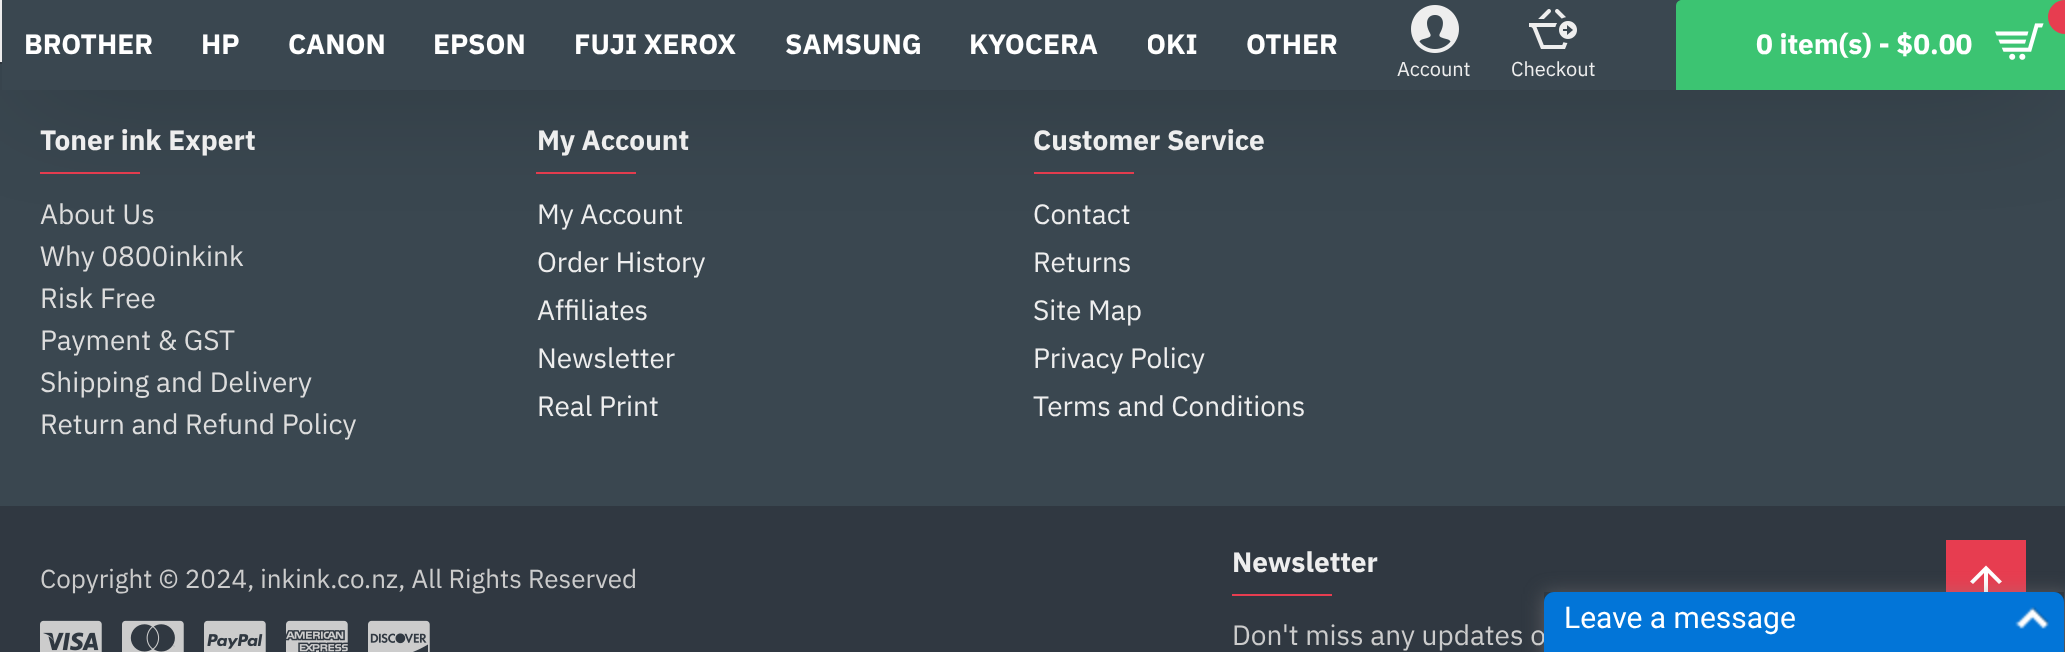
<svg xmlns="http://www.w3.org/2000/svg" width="2065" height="652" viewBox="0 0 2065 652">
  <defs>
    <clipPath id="clip1"><path d="M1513 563H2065V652H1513ZM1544 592H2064V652H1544Z" clip-rule="evenodd"/></clipPath>
    <clipPath id="clip2"><path d="M1148 24h50v42H1148z"/></clipPath>
  </defs>
  <rect width="100%" height="100%" fill="#f5f5f5"/>
  <path d="M0 64h2065v442H0z" fill="#3a4750"/>
  <path d="M0 62h2v2H0z" fill="#303841"/>
  <path d="M40 172h100v2H40z" fill="#e73d50"/>
  <path d="M536 172h100v2H536z" fill="#e73d50"/>
  <path d="M1034 172h100v2H1034z" fill="#e73d50"/>
  <path d="M22 30h2026v50H22z" fill="#0000004d" filter="blur(60px)"/>
  <path d="M2 0h1680v90H2z" fill="#3a4750"/>
  <path d="M1682 0H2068V90H1676V6C1676 2.5 1678.5 0 1682 0Z" fill="#3cc472"/>
  <circle cx="2065" cy="17" r="17" fill="#e73d50"/>
  <image x="1995" y="23" width="49" height="37" href="img/1.png"/>
  <image x="1411" y="5" width="48" height="48" href="img/2.png"/>
  <image x="1529" y="9" width="48" height="40" href="img/3.png"/>
  <path d="M0 506h2065v146H0z" fill="#303841"/>
  <image x="40" y="620" width="62" height="32" href="img/4.png"/>
  <image x="122" y="620" width="62" height="32" href="img/5.png"/>
  <image x="204" y="620" width="62" height="32" href="img/6.png"/>
  <image x="286" y="620" width="62" height="32" href="img/7.png"/>
  <image x="368" y="620" width="62" height="32" href="img/8.png"/>
  <path d="M1232 594h100v2H1232z" fill="#e73d50"/>
  <path d="M1946 540h80v52H1946z" fill="#e73d50"/>
  <path d="M1970 581.5L1986 565.5L2002 581.5L1999 584L1988 573V597H1984V573L1973 584Z" fill="#fff"/>
  <g clip-path="url(#clip1)">
    <path d="M1544 594h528v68H1544z" fill="#8b858580" filter="blur(10px)"/>
  </g>
  <g font-family="IBM Plex Sans" font-size="28" font-weight="bold" fill="#fff">
    <text x="24" y="54">BROTHER</text>
    <text x="201" y="54">HP</text>
    <text x="288" y="54">CANON</text>
    <text x="433" y="54">EPSON</text>
    <text x="574" y="54">FUJI XEROX</text>
    <text x="785" y="54">SAMSUNG</text>
    <text x="969" y="54">KYOCERA</text>
  </g>
  <g clip-path="url(#clip2)">
    <text x="1146" y="54" font-family="IBM Plex Sans" font-size="28" font-weight="bold" fill="#fff">OKI</text>
  </g>
  <g font-family="IBM Plex Sans" font-size="28" font-weight="bold" fill="#fff">
    <text x="1246" y="54">OTHER</text>
    <text x="1756" y="54">0 item(s) - $0.00</text>
  </g>
  <g font-family="IBM Plex Sans" font-size="20" fill="#eee">
    <text x="1397" y="76">Account</text>
    <text x="1511" y="76">Checkout</text>
  </g>
  <text x="40" y="150" font-family="IBM Plex Sans" font-size="28" font-weight="bold" fill="#eee">Toner ink Expert</text>
  <g font-family="IBM Plex Sans" font-size="28" fill="#ddd">
    <text x="40" y="224">About Us</text>
    <text x="40" y="266">Why 0800inkink</text>
    <text x="40" y="308">Risk Free</text>
    <text x="40" y="350">Payment &amp; GST</text>
    <text x="40" y="392">Shipping and Delivery</text>
    <text x="40" y="434">Return and Refund Policy</text>
  </g>
  <text x="537" y="150" font-family="IBM Plex Sans" font-size="28" font-weight="bold" fill="#eee">My Account</text>
  <g font-family="IBM Plex Sans" font-size="28" fill="#eee">
    <text x="537" y="224">My Account</text>
    <text x="537" y="272">Order History</text>
    <text x="537" y="320">Affiliates</text>
    <text x="537" y="368">Newsletter</text>
    <text x="537" y="416">Real Print</text>
  </g>
  <text x="1033" y="150" font-family="IBM Plex Sans" font-size="28" font-weight="bold" fill="#eee">Customer Service</text>
  <g font-family="IBM Plex Sans" font-size="28" fill="#eee">
    <text x="1033" y="224">Contact</text>
    <text x="1033" y="272">Returns</text>
    <text x="1033" y="320">Site Map</text>
    <text x="1033" y="368">Privacy Policy</text>
    <text x="1033" y="416">Terms and Conditions</text>
  </g>
  <text x="40" y="588" font-family="IBM Plex Sans" font-size="26" fill="#ccc">Copyright © 2024, inkink.co.nz, All Rights Reserved</text>
  <text x="1232" y="572" font-family="IBM Plex Sans" font-size="28" font-weight="bold" fill="#eee">Newsletter</text>
  <text x="1232" y="645" font-family="IBM Plex Sans" font-size="28" fill="#ccc">Don't miss any updates o</text>
  <path d="M1554 592H2054C2059.5 592 2064 596.5 2064 602V652H1544V602C1544 596.5 1548.5 592 1554 592Z" fill="#0275d8"/>
  <text x="1564" y="628" font-family="Roboto" font-size="30" fill="#fff">Leave a message</text>
  <image x="2015" y="606" width="34" height="23" href="img/9.png"/>
</svg>
